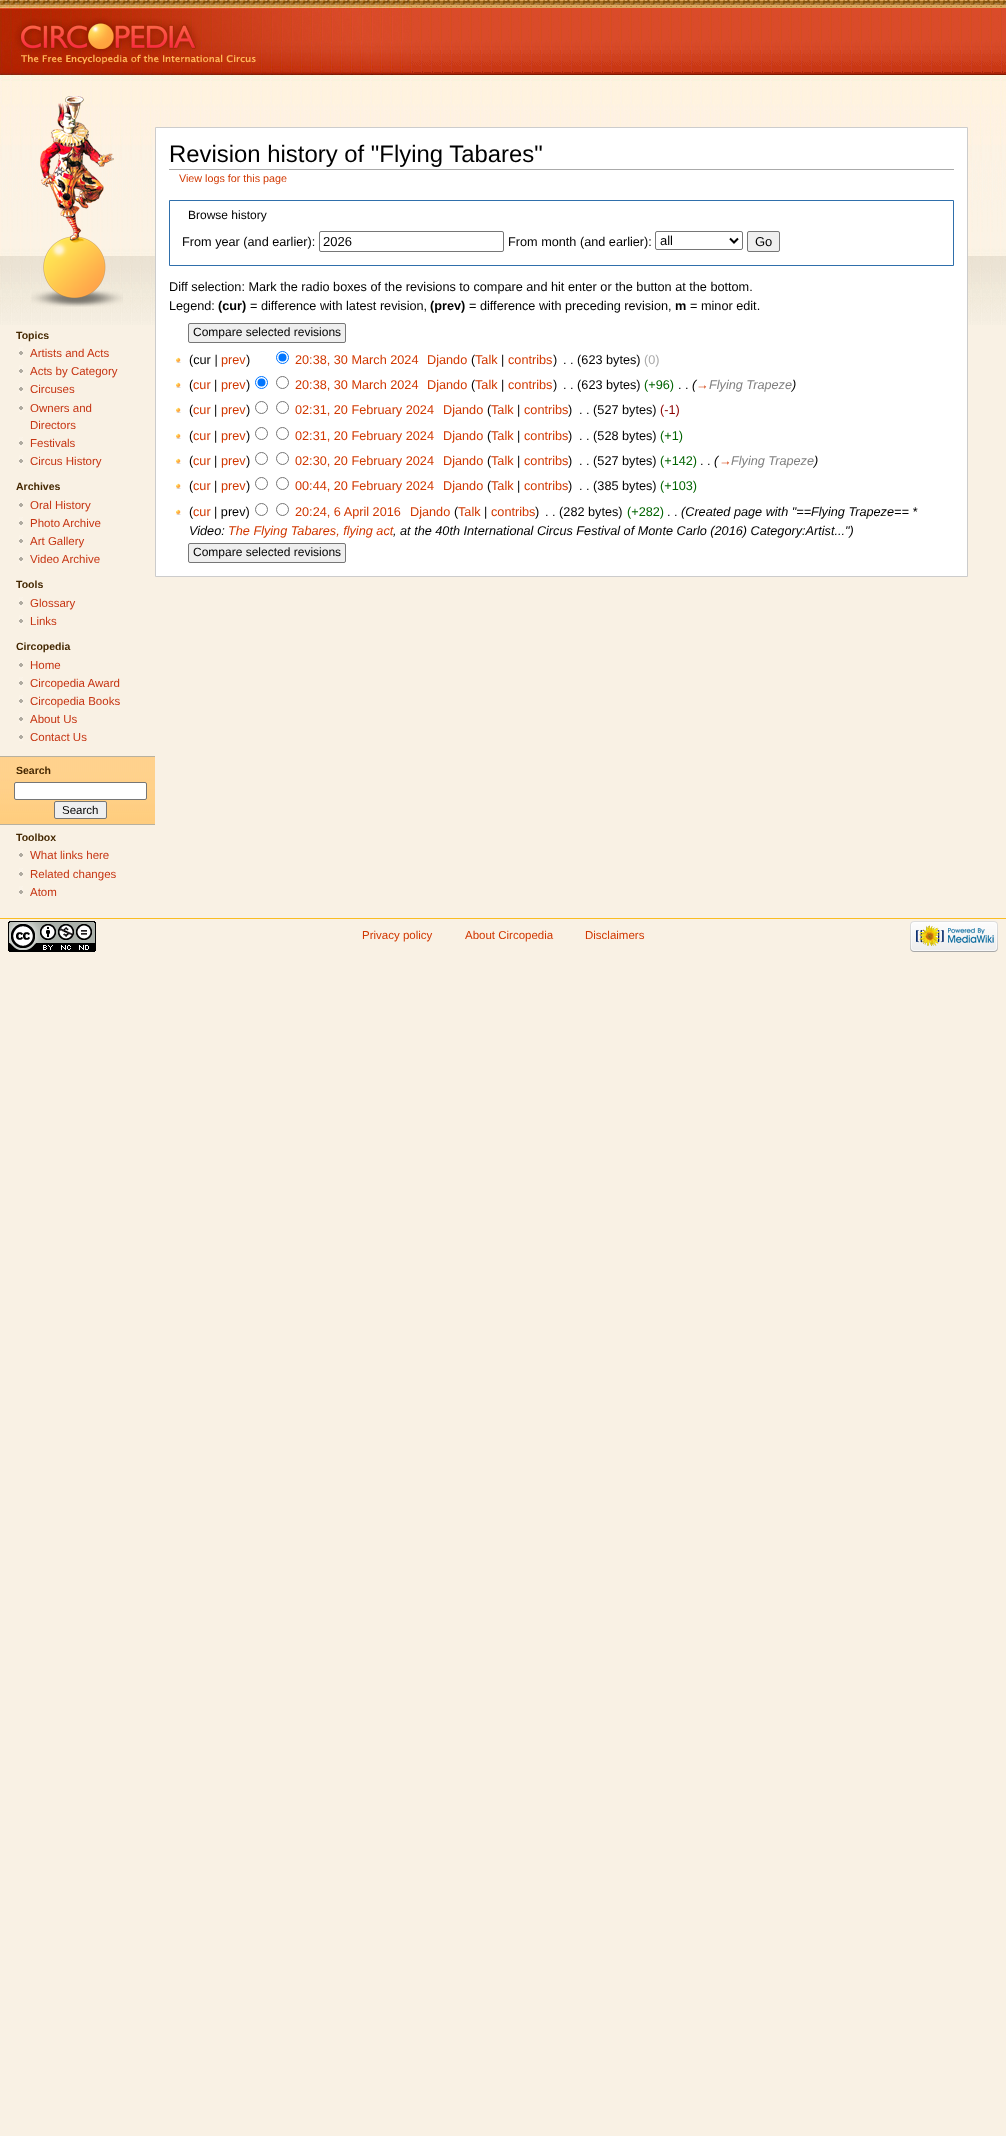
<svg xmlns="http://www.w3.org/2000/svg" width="1006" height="2136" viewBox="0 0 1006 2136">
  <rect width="100%" height="100%" fill="#f9f1e4"/>
  <image x="0" y="0" width="1006" height="325" href="img/1.png"/>
  <image x="0" y="0" width="411" height="75" href="img/2.png"/>
  <image x="31" y="96" width="92" height="211" href="img/3.png"/>
  <image x="19" y="347" width="4" height="10" href="img/4.png"/>
  <image x="19" y="365" width="4" height="10" href="img/4.png"/>
  <image x="19" y="383" width="4" height="10" href="img/4.png"/>
  <image x="19" y="402" width="4" height="10" href="img/4.png"/>
  <image x="19" y="437" width="4" height="10" href="img/4.png"/>
  <image x="19" y="455" width="4" height="10" href="img/4.png"/>
  <image x="19" y="499" width="4" height="10" href="img/4.png"/>
  <image x="19" y="517" width="4" height="10" href="img/4.png"/>
  <image x="19" y="535" width="4" height="10" href="img/4.png"/>
  <image x="19" y="553" width="4" height="10" href="img/4.png"/>
  <image x="19" y="597" width="4" height="10" href="img/4.png"/>
  <image x="19" y="615" width="4" height="10" href="img/4.png"/>
  <image x="19" y="659" width="4" height="10" href="img/4.png"/>
  <image x="19" y="677" width="4" height="10" href="img/4.png"/>
  <image x="19" y="695" width="4" height="10" href="img/4.png"/>
  <image x="19" y="713" width="4" height="10" href="img/4.png"/>
  <image x="19" y="731" width="4" height="10" href="img/4.png"/>
  <image x="0" y="757" width="155" height="67" href="img/5.png"/>
  <path d="M0 756h155v1H0z" fill="#b8b19f"/>
  <path d="M0 824h155v1H0z" fill="#b8b19f"/>
  <rect x="14.5" y="782.5" width="132" height="17" rx="1.5" fill="#fff" stroke="#767676"/>
  <rect x="54.5" y="801.5" width="52" height="17" rx="1.5" fill="#efefef" stroke="#767676"/>
  <image x="19" y="849" width="4" height="10" href="img/4.png"/>
  <image x="19" y="868" width="4" height="10" href="img/4.png"/>
  <image x="19" y="886" width="4" height="10" href="img/4.png"/>
  <path d="M155.5 127.5h812v449H155.5z" fill="#fff" stroke="#ccc"/>
  <path d="M169 169h785v1H169z" fill="#aaa"/>
  <path d="M169.5 200.5h784v65H169.5z" fill="none" stroke="#2f6fab"/>
  <rect x="319.5" y="231.5" width="184" height="20" rx="1.5" fill="none" stroke="#767676"/>
  <rect x="655.5" y="231.5" width="87" height="18" rx="1.5" fill="none" stroke="#767676"/>
  <path d="M730 238.5L734 242.5L738 238.5" fill="none" stroke="#000" stroke-width="2"/>
  <rect x="747.5" y="231.5" width="32" height="20" rx="1.5" fill="#efefef" stroke="#767676"/>
  <rect x="188.5" y="323.5" width="157" height="19" rx="1.5" fill="#efefef" stroke="#767676"/>
  <image x="176" y="357" width="5" height="6" href="img/6.png"/>
  <circle cx="282.5" cy="357.5" r="6" fill="none" stroke="#0075ff"/>
  <circle cx="282.5" cy="357.5" r="4" fill="#0075ff"/>
  <image x="176" y="382" width="5" height="6" href="img/6.png"/>
  <circle cx="261.5" cy="382.5" r="6" fill="none" stroke="#0075ff"/>
  <circle cx="261.5" cy="382.5" r="4" fill="#0075ff"/>
  <circle cx="282.5" cy="382.5" r="6" fill="none" stroke="#767676"/>
  <image x="176" y="407" width="5" height="6" href="img/6.png"/>
  <circle cx="261.5" cy="407.5" r="6" fill="none" stroke="#767676"/>
  <circle cx="282.5" cy="407.5" r="6" fill="none" stroke="#767676"/>
  <image x="176" y="433" width="5" height="6" href="img/6.png"/>
  <circle cx="261.5" cy="433.5" r="6" fill="none" stroke="#767676"/>
  <circle cx="282.5" cy="433.5" r="6" fill="none" stroke="#767676"/>
  <image x="176" y="458" width="5" height="6" href="img/6.png"/>
  <circle cx="261.5" cy="458.5" r="6" fill="none" stroke="#767676"/>
  <circle cx="282.5" cy="458.5" r="6" fill="none" stroke="#767676"/>
  <image x="176" y="483" width="5" height="6" href="img/6.png"/>
  <circle cx="261.5" cy="483.5" r="6" fill="none" stroke="#767676"/>
  <circle cx="282.5" cy="483.5" r="6" fill="none" stroke="#767676"/>
  <image x="176" y="509" width="5" height="6" href="img/6.png"/>
  <circle cx="261.5" cy="509.5" r="6" fill="none" stroke="#767676"/>
  <circle cx="282.5" cy="509.5" r="6" fill="none" stroke="#767676"/>
  <rect x="188.5" y="543.5" width="157" height="19" rx="1.5" fill="#efefef" stroke="#767676"/>
  <path d="M0 918h1006v1H0z" fill="#fabd23"/>
  <image x="8" y="921" width="88" height="31" href="img/7.png"/>
  <image x="910" y="921" width="88" height="31" href="img/8.png"/>
  <text x="16" y="339" font-family="Liberation Sans" font-size="10.5" font-weight="bold" fill="#442700">Topics</text>
  <g font-family="Liberation Sans" font-size="11.5" fill="#c63614">
    <text x="30" y="357">Artists and Acts</text>
    <text x="30" y="375">Acts by Category</text>
    <text x="30" y="393">Circuses</text>
    <text x="30" y="412">Owners and</text>
    <text x="30" y="429">Directors</text>
    <text x="30" y="447">Festivals</text>
    <text x="30" y="465">Circus History</text>
  </g>
  <text x="16" y="490" font-family="Liberation Sans" font-size="10.5" font-weight="bold" fill="#442700">Archives</text>
  <g font-family="Liberation Sans" font-size="11.5" fill="#c63614">
    <text x="30" y="509">Oral History</text>
    <text x="30" y="527">Photo Archive</text>
    <text x="30" y="545">Art Gallery</text>
    <text x="30" y="563">Video Archive</text>
  </g>
  <text x="16" y="588" font-family="Liberation Sans" font-size="10.5" font-weight="bold" fill="#442700">Tools</text>
  <g font-family="Liberation Sans" font-size="11.5" fill="#c63614">
    <text x="30" y="607">Glossary</text>
    <text x="30" y="625">Links</text>
  </g>
  <text x="16" y="650" font-family="Liberation Sans" font-size="10.5" font-weight="bold" fill="#442700">Circopedia</text>
  <g font-family="Liberation Sans" font-size="11.5" fill="#c63614">
    <text x="30" y="669">Home</text>
    <text x="30" y="687">Circopedia Award</text>
    <text x="30" y="705">Circopedia Books</text>
    <text x="30" y="723">About Us</text>
    <text x="30" y="741">Contact Us</text>
  </g>
  <text x="16" y="774" font-family="Liberation Sans" font-size="10.5" font-weight="bold" fill="#442700">Search</text>
  <text x="62" y="814" font-family="Liberation Sans" font-size="11.5" fill="#000">Search</text>
  <text x="16" y="841" font-family="Liberation Sans" font-size="10.5" font-weight="bold" fill="#442700">Toolbox</text>
  <g font-family="Liberation Sans" font-size="11.5" fill="#c63614">
    <text x="30" y="859">What links here</text>
    <text x="30" y="878">Related changes</text>
    <text x="30" y="896">Atom</text>
  </g>
  <text x="169" y="162" font-family="Liberation Sans" font-size="23.9" fill="#000">Revision history of "Flying Tabares"</text>
  <text x="179" y="182" font-family="Liberation Sans" font-size="10.75" fill="#d13800">View logs for this page</text>
  <text x="188" y="219" font-family="Liberation Sans" font-size="12" fill="#000">Browse history</text>
  <text x="182" y="246" font-family="Liberation Sans" font-size="12.7" fill="#000">From year (and earlier):</text>
  <text x="323" y="246" font-family="Liberation Sans" font-size="13" fill="#000">2026</text>
  <text x="508" y="246" font-family="Liberation Sans" font-size="12.7" fill="#000">From month (and earlier):</text>
  <g font-family="Liberation Sans" font-size="13" fill="#000">
    <text x="660" y="245">all</text>
    <text x="755" y="246">Go</text>
  </g>
  <g font-family="Liberation Sans" font-size="12.7" fill="#000">
    <text x="169" y="291">Diff selection: Mark the radio boxes of the revisions to compare and hit enter or the button at the bottom.</text>
    <text x="169" y="310">Legend:</text>
  </g>
  <text x="218" y="310" font-family="Liberation Sans" font-size="12.7" font-weight="bold" fill="#000">(cur)</text>
  <text x="250" y="310" font-family="Liberation Sans" font-size="12.7" fill="#000">= difference with latest revision,</text>
  <text x="430" y="310" font-family="Liberation Sans" font-size="12.7" font-weight="bold" fill="#000">(prev)</text>
  <text x="469" y="310" font-family="Liberation Sans" font-size="12.7" fill="#000">= difference with preceding revision,</text>
  <text x="675" y="310" font-family="Liberation Sans" font-size="12.7" font-weight="bold" fill="#000">m</text>
  <text x="690" y="310" font-family="Liberation Sans" font-size="12.7" fill="#000">= minor edit.</text>
  <text x="193" y="336" font-family="Liberation Sans" font-size="12" fill="#000">Compare selected revisions</text>
  <text x="189" y="364" font-family="Liberation Sans" font-size="12.7" fill="#000">(cur |</text>
  <text x="221" y="364" font-family="Liberation Sans" font-size="12.7" fill="#d13800">prev</text>
  <text x="246" y="364" font-family="Liberation Sans" font-size="12.7" fill="#000">)</text>
  <g font-family="Liberation Sans" font-size="12.7" fill="#d13800">
    <text x="295" y="364">20:38, 30 March 2024</text>
    <text x="427" y="364">Djando</text>
  </g>
  <text x="471" y="364" font-family="Liberation Sans" font-size="12.7" fill="#000">(</text>
  <text x="475" y="364" font-family="Liberation Sans" font-size="12.7" fill="#d13800">Talk</text>
  <text x="501" y="364" font-family="Liberation Sans" font-size="12.7" fill="#000">|</text>
  <text x="508" y="364" font-family="Liberation Sans" font-size="12.7" fill="#d13800">contribs</text>
  <g font-family="Liberation Sans" font-size="12.7" fill="#000">
    <text x="553" y="364">)</text>
    <text x="563" y="364">. . (623 bytes)</text>
  </g>
  <text x="644" y="364" font-family="Liberation Sans" font-size="12.7" fill="#aaa">(0)</text>
  <text x="189" y="389" font-family="Liberation Sans" font-size="12.7" fill="#000">(</text>
  <text x="193" y="389" font-family="Liberation Sans" font-size="12.7" fill="#d13800">cur</text>
  <text x="214" y="389" font-family="Liberation Sans" font-size="12.7" fill="#000">|</text>
  <text x="221" y="389" font-family="Liberation Sans" font-size="12.7" fill="#d13800">prev</text>
  <text x="246" y="389" font-family="Liberation Sans" font-size="12.7" fill="#000">)</text>
  <g font-family="Liberation Sans" font-size="12.7" fill="#d13800">
    <text x="295" y="389">20:38, 30 March 2024</text>
    <text x="427" y="389">Djando</text>
  </g>
  <text x="471" y="389" font-family="Liberation Sans" font-size="12.7" fill="#000">(</text>
  <text x="475" y="389" font-family="Liberation Sans" font-size="12.7" fill="#d13800">Talk</text>
  <text x="501" y="389" font-family="Liberation Sans" font-size="12.7" fill="#000">|</text>
  <text x="508" y="389" font-family="Liberation Sans" font-size="12.7" fill="#d13800">contribs</text>
  <g font-family="Liberation Sans" font-size="12.7" fill="#000">
    <text x="553" y="389">)</text>
    <text x="563" y="389">. . (623 bytes)</text>
  </g>
  <text x="644" y="389" font-family="Liberation Sans" font-size="12.7" fill="#006400">(+96)</text>
  <text x="678" y="389" font-family="Liberation Sans" font-size="12.7" fill="#000">. .</text>
  <text x="692" y="389" font-family="Liberation Sans" font-size="12.7" font-style="italic" fill="#000">(</text>
  <text x="696" y="389" font-family="Liberation Sans" font-size="12.7" font-style="italic" fill="#d13800">→</text>
  <text x="709" y="389" font-family="Liberation Sans" font-size="12.7" font-style="italic" fill="#808080">Flying Trapeze</text>
  <text x="792" y="389" font-family="Liberation Sans" font-size="12.7" font-style="italic" fill="#000">)</text>
  <text x="189" y="414" font-family="Liberation Sans" font-size="12.7" fill="#000">(</text>
  <text x="193" y="414" font-family="Liberation Sans" font-size="12.7" fill="#d13800">cur</text>
  <text x="214" y="414" font-family="Liberation Sans" font-size="12.7" fill="#000">|</text>
  <text x="221" y="414" font-family="Liberation Sans" font-size="12.7" fill="#d13800">prev</text>
  <text x="246" y="414" font-family="Liberation Sans" font-size="12.7" fill="#000">)</text>
  <g font-family="Liberation Sans" font-size="12.7" fill="#d13800">
    <text x="295" y="414">02:31, 20 February 2024</text>
    <text x="443" y="414">Djando</text>
  </g>
  <text x="487" y="414" font-family="Liberation Sans" font-size="12.7" fill="#000">(</text>
  <text x="491" y="414" font-family="Liberation Sans" font-size="12.7" fill="#d13800">Talk</text>
  <text x="517" y="414" font-family="Liberation Sans" font-size="12.7" fill="#000">|</text>
  <text x="524" y="414" font-family="Liberation Sans" font-size="12.7" fill="#d13800">contribs</text>
  <g font-family="Liberation Sans" font-size="12.7" fill="#000">
    <text x="568" y="414">)</text>
    <text x="579" y="414">. . (527 bytes)</text>
  </g>
  <text x="660" y="414" font-family="Liberation Sans" font-size="12.7" fill="#8b0000">(-1)</text>
  <text x="189" y="440" font-family="Liberation Sans" font-size="12.7" fill="#000">(</text>
  <text x="193" y="440" font-family="Liberation Sans" font-size="12.7" fill="#d13800">cur</text>
  <text x="214" y="440" font-family="Liberation Sans" font-size="12.7" fill="#000">|</text>
  <text x="221" y="440" font-family="Liberation Sans" font-size="12.7" fill="#d13800">prev</text>
  <text x="246" y="440" font-family="Liberation Sans" font-size="12.7" fill="#000">)</text>
  <g font-family="Liberation Sans" font-size="12.7" fill="#d13800">
    <text x="295" y="440">02:31, 20 February 2024</text>
    <text x="443" y="440">Djando</text>
  </g>
  <text x="487" y="440" font-family="Liberation Sans" font-size="12.7" fill="#000">(</text>
  <text x="491" y="440" font-family="Liberation Sans" font-size="12.7" fill="#d13800">Talk</text>
  <text x="517" y="440" font-family="Liberation Sans" font-size="12.7" fill="#000">|</text>
  <text x="524" y="440" font-family="Liberation Sans" font-size="12.7" fill="#d13800">contribs</text>
  <g font-family="Liberation Sans" font-size="12.7" fill="#000">
    <text x="568" y="440">)</text>
    <text x="579" y="440">. . (528 bytes)</text>
  </g>
  <text x="660" y="440" font-family="Liberation Sans" font-size="12.7" fill="#006400">(+1)</text>
  <text x="189" y="465" font-family="Liberation Sans" font-size="12.7" fill="#000">(</text>
  <text x="193" y="465" font-family="Liberation Sans" font-size="12.7" fill="#d13800">cur</text>
  <text x="214" y="465" font-family="Liberation Sans" font-size="12.7" fill="#000">|</text>
  <text x="221" y="465" font-family="Liberation Sans" font-size="12.7" fill="#d13800">prev</text>
  <text x="246" y="465" font-family="Liberation Sans" font-size="12.7" fill="#000">)</text>
  <g font-family="Liberation Sans" font-size="12.7" fill="#d13800">
    <text x="295" y="465">02:30, 20 February 2024</text>
    <text x="443" y="465">Djando</text>
  </g>
  <text x="487" y="465" font-family="Liberation Sans" font-size="12.7" fill="#000">(</text>
  <text x="491" y="465" font-family="Liberation Sans" font-size="12.7" fill="#d13800">Talk</text>
  <text x="517" y="465" font-family="Liberation Sans" font-size="12.7" fill="#000">|</text>
  <text x="524" y="465" font-family="Liberation Sans" font-size="12.7" fill="#d13800">contribs</text>
  <g font-family="Liberation Sans" font-size="12.7" fill="#000">
    <text x="568" y="465">)</text>
    <text x="579" y="465">. . (527 bytes)</text>
  </g>
  <text x="660" y="465" font-family="Liberation Sans" font-size="12.7" fill="#006400">(+142)</text>
  <text x="700" y="465" font-family="Liberation Sans" font-size="12.7" fill="#000">. .</text>
  <text x="714" y="465" font-family="Liberation Sans" font-size="12.7" font-style="italic" fill="#000">(</text>
  <text x="719" y="465" font-family="Liberation Sans" font-size="12.7" font-style="italic" fill="#d13800">→</text>
  <text x="731" y="465" font-family="Liberation Sans" font-size="12.7" font-style="italic" fill="#808080">Flying Trapeze</text>
  <text x="814" y="465" font-family="Liberation Sans" font-size="12.7" font-style="italic" fill="#000">)</text>
  <text x="189" y="490" font-family="Liberation Sans" font-size="12.7" fill="#000">(</text>
  <text x="193" y="490" font-family="Liberation Sans" font-size="12.7" fill="#d13800">cur</text>
  <text x="214" y="490" font-family="Liberation Sans" font-size="12.7" fill="#000">|</text>
  <text x="221" y="490" font-family="Liberation Sans" font-size="12.7" fill="#d13800">prev</text>
  <text x="246" y="490" font-family="Liberation Sans" font-size="12.7" fill="#000">)</text>
  <g font-family="Liberation Sans" font-size="12.7" fill="#d13800">
    <text x="295" y="490">00:44, 20 February 2024</text>
    <text x="443" y="490">Djando</text>
  </g>
  <text x="487" y="490" font-family="Liberation Sans" font-size="12.7" fill="#000">(</text>
  <text x="491" y="490" font-family="Liberation Sans" font-size="12.7" fill="#d13800">Talk</text>
  <text x="517" y="490" font-family="Liberation Sans" font-size="12.7" fill="#000">|</text>
  <text x="524" y="490" font-family="Liberation Sans" font-size="12.7" fill="#d13800">contribs</text>
  <g font-family="Liberation Sans" font-size="12.7" fill="#000">
    <text x="568" y="490">)</text>
    <text x="579" y="490">. . (385 bytes)</text>
  </g>
  <text x="660" y="490" font-family="Liberation Sans" font-size="12.7" fill="#006400">(+103)</text>
  <text x="189" y="516" font-family="Liberation Sans" font-size="12.7" fill="#000">(</text>
  <text x="193" y="516" font-family="Liberation Sans" font-size="12.7" fill="#d13800">cur</text>
  <text x="214" y="516" font-family="Liberation Sans" font-size="12.7" fill="#000">| prev)</text>
  <g font-family="Liberation Sans" font-size="12.7" fill="#d13800">
    <text x="295" y="516">20:24, 6 April 2016</text>
    <text x="410" y="516">Djando</text>
  </g>
  <text x="454" y="516" font-family="Liberation Sans" font-size="12.7" fill="#000">(</text>
  <text x="458" y="516" font-family="Liberation Sans" font-size="12.7" fill="#d13800">Talk</text>
  <text x="484" y="516" font-family="Liberation Sans" font-size="12.7" fill="#000">|</text>
  <text x="491" y="516" font-family="Liberation Sans" font-size="12.7" fill="#d13800">contribs</text>
  <g font-family="Liberation Sans" font-size="12.7" fill="#000">
    <text x="535" y="516">)</text>
    <text x="545" y="516">. . (282 bytes)</text>
  </g>
  <text x="627" y="516" font-family="Liberation Sans" font-size="12.7" fill="#006400">(+282)</text>
  <text x="667" y="516" font-family="Liberation Sans" font-size="12.7" fill="#000">. .</text>
  <g font-family="Liberation Sans" font-size="12.7" font-style="italic" fill="#000">
    <text x="681" y="516">(Created page with "==Flying Trapeze== *</text>
    <text x="189" y="535">Video:</text>
  </g>
  <text x="228" y="535" font-family="Liberation Sans" font-size="12.7" font-style="italic" fill="#d13800">The Flying Tabares, flying act</text>
  <text x="393" y="535" font-family="Liberation Sans" font-size="12.7" font-style="italic" fill="#000">, at the 40th International Circus Festival of Monte Carlo (2016) Category:Artist...")</text>
  <text x="193" y="556" font-family="Liberation Sans" font-size="12" fill="#000">Compare selected revisions</text>
  <g font-family="Liberation Sans" font-size="11.5" fill="#d13800">
    <text x="362" y="939">Privacy policy</text>
    <text x="465" y="939">About Circopedia</text>
    <text x="585" y="939">Disclaimers</text>
  </g>
</svg>
